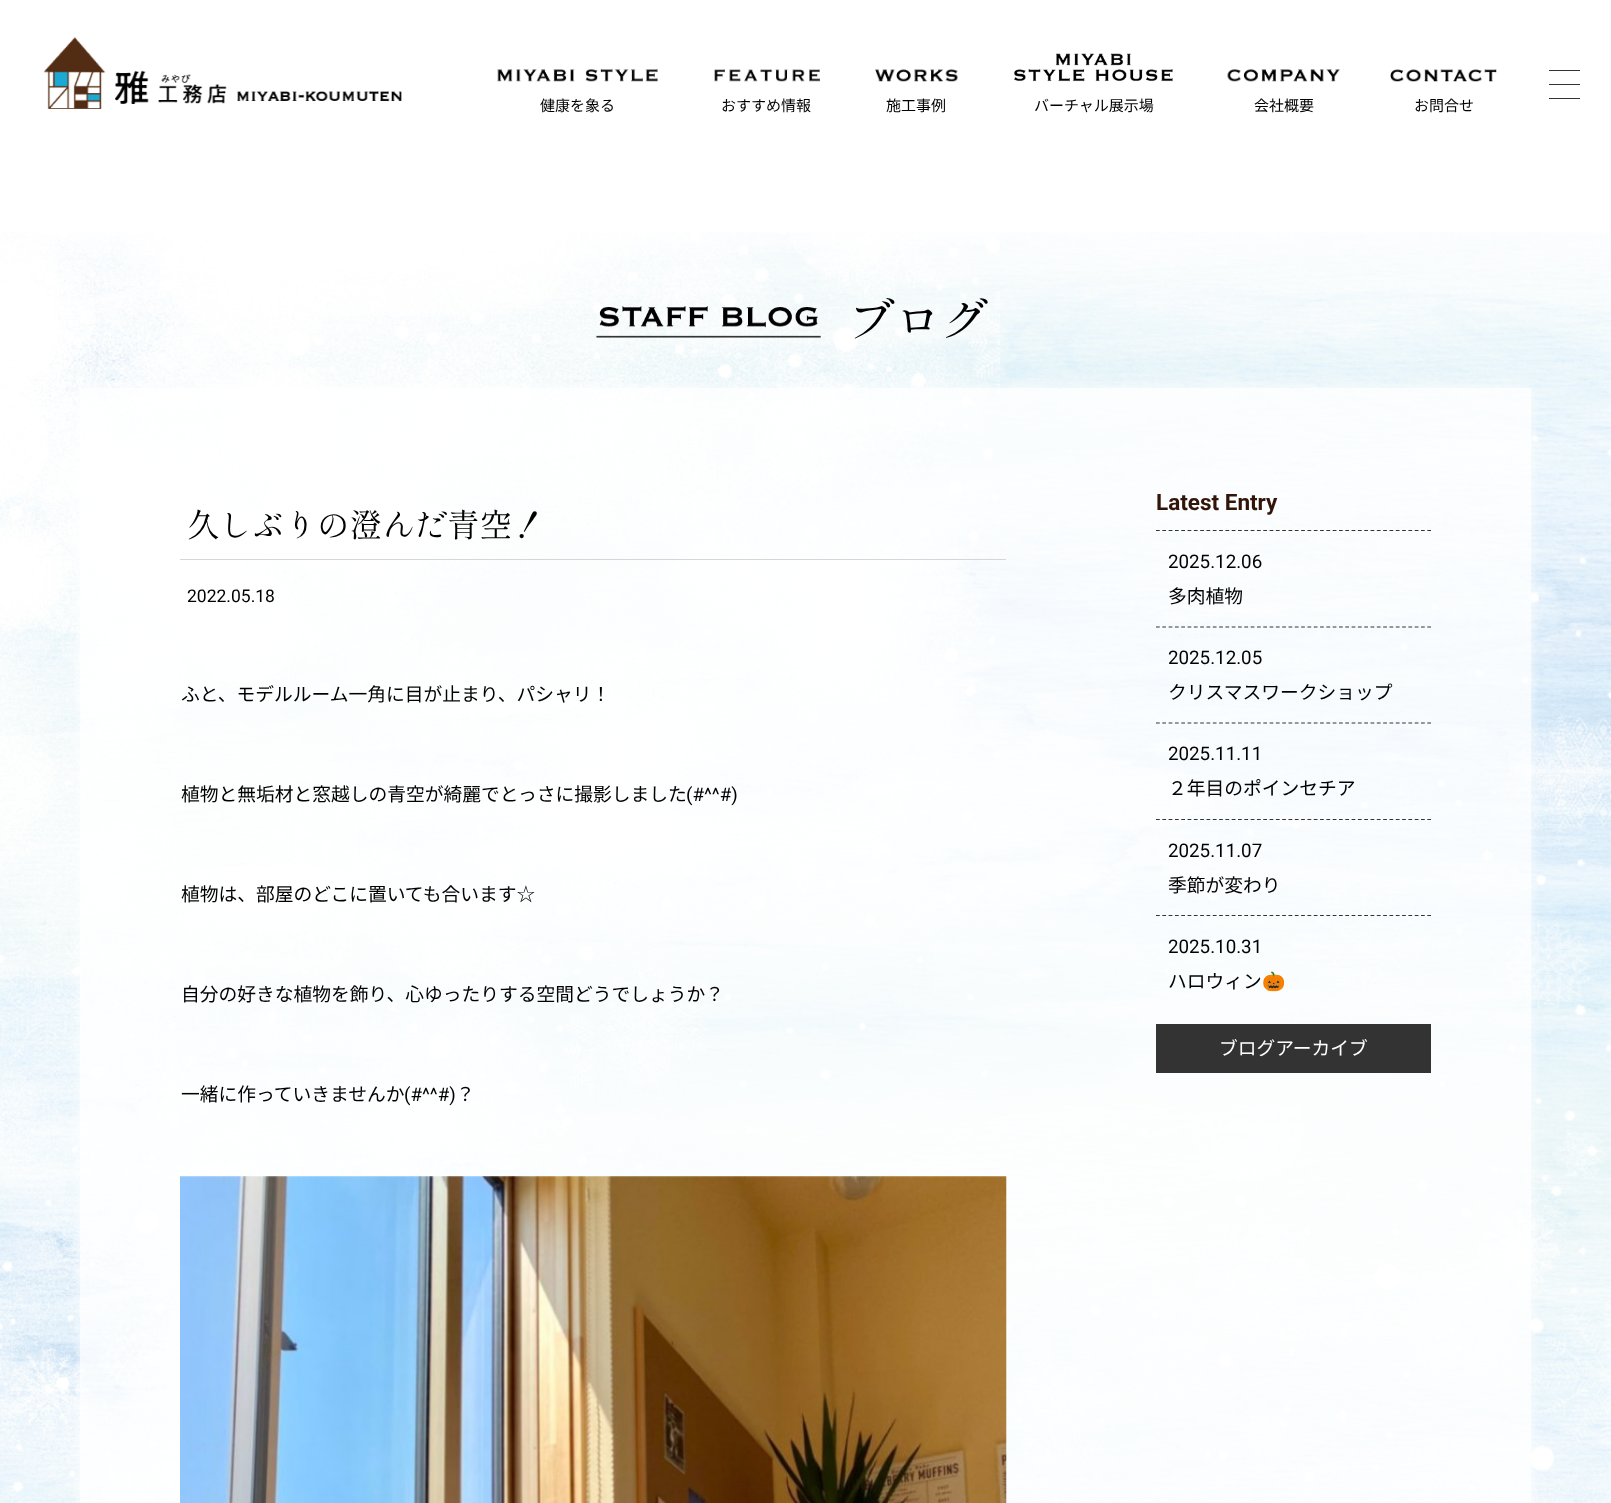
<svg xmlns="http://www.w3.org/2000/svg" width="1611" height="1503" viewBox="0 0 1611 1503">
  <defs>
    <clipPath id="clip1"><path d="M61 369H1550V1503H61ZM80 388H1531V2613H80Z" clip-rule="evenodd"/></clipPath>
  </defs>
  <rect width="100%" height="100%" fill="#fff"/>
  <path d="M1549 70h31v1H1549z" fill="#333"/>
  <path d="M1549 84h31v1H1549z" fill="#333"/>
  <path d="M1549 98h31v1H1549z" fill="#333"/>
  <image x="43" y="37" width="359" height="72" href="img/1.png"/>
  <image x="497" y="68" width="161" height="14" href="img/2.png"/>
  <image x="714" y="69" width="106" height="13" href="img/3.png"/>
  <image x="875" y="69" width="83" height="13" href="img/4.png"/>
  <image x="1014" y="53" width="159" height="29" href="img/5.png"/>
  <image x="1227" y="69" width="113" height="13" href="img/6.png"/>
  <image x="1390" y="69" width="107" height="13" href="img/7.png"/>
  <image x="0" y="232" width="1611" height="1271" href="img/8.png"/>
  <image x="596" y="306" width="225" height="32" href="img/9.png"/>
  <g clip-path="url(#clip1)">
    <path d="M80 388h1451v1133H80z" fill="#ffffffcc" filter="blur(6px)"/>
  </g>
  <path d="M80 388h1451v1115H80z" fill="#ffffffcc"/>
  <path d="M180 559h826v1H180z" fill="#d6d6d6"/>
  <image x="180" y="1176" width="827" height="327" href="img/10.png"/>
  <path d="M1156 530.5H1431" fill="none" stroke="#333" stroke-width="1.2" stroke-dasharray="3.75 2.56"/>
  <path d="M1156 627H1431" fill="none" stroke="#333" stroke-width="1.2" stroke-dasharray="3.75 2.56"/>
  <path d="M1156 723H1431" fill="none" stroke="#333" stroke-width="1.2" stroke-dasharray="3.75 2.56"/>
  <path d="M1156 819.5H1431" fill="none" stroke="#333" stroke-width="1.2" stroke-dasharray="3.75 2.56"/>
  <path d="M1156 915.5H1431" fill="none" stroke="#333" stroke-width="1.2" stroke-dasharray="3.75 2.56"/>
  <path d="M1156 1024h275v49H1156z" fill="#333"/>
  <path d="M1156 1024.5H1431" fill="none" stroke="#333" stroke-width="1.2" stroke-dasharray="3.75 2.56"/>
  <g font-family="Noto Sans JP" font-size="15" fill="#000">
    <text x="540" y="111">健康を象る</text>
    <text x="721" y="111">おすすめ情報</text>
    <text x="886" y="111">施工事例</text>
    <text x="1034" y="111">バーチャル展示場</text>
    <text x="1254" y="111">会社概要</text>
    <text x="1414" y="111">お問合せ</text>
  </g>
  <text x="847" y="338" font-family="Shippori Mincho" font-size="47.5" fill="#000">ブログ</text>
  <text x="187" y="537" font-family="Shippori Mincho" font-size="32.5" fill="#000">久しぶりの澄んだ青空！</text>
  <text x="187" y="602" font-family="Roboto" font-size="17.5" fill="#000">2022.05.18</text>
  <g font-family="Noto Sans JP" font-size="18.75" fill="#000">
    <text x="181" y="701">ふと、モデルルーム一角に目が止まり、パシャリ！</text>
    <text x="181" y="801">植物と無垢材と窓越しの青空が綺麗でとっさに撮影しました</text>
  </g>
  <text x="686" y="801" font-family="Roboto" font-size="18.75" fill="#000">(#^^#)</text>
  <g font-family="Noto Sans JP" font-size="18.75" fill="#000">
    <text x="181" y="901">植物は、部屋のどこに置いても合います☆</text>
    <text x="181" y="1001">自分の好きな植物を飾り、心ゆったりする空間どうでしょうか？</text>
    <text x="181" y="1101">一緒に作っていきませんか</text>
  </g>
  <text x="404" y="1101" font-family="Roboto" font-size="18.75" fill="#000">(#^^#)</text>
  <text x="456" y="1101" font-family="Noto Sans JP" font-size="18.75" fill="#000">？</text>
  <text x="1156" y="510" font-family="Roboto" font-size="22.5" font-weight="bold" fill="#301508">Latest Entry</text>
  <text x="1168" y="568" font-family="Roboto" font-size="18.75" fill="#000">2025.12.06</text>
  <text x="1168" y="603" font-family="Noto Sans JP" font-size="18.75" fill="#000">多肉植物</text>
  <text x="1168" y="664" font-family="Roboto" font-size="18.75" fill="#000">2025.12.05</text>
  <text x="1168" y="699" font-family="Noto Sans JP" font-size="18.75" fill="#000">クリスマスワークショップ</text>
  <text x="1168" y="760" font-family="Roboto" font-size="18.75" fill="#000">2025.11.11</text>
  <text x="1168" y="795" font-family="Noto Sans JP" font-size="18.75" fill="#000">２年目のポインセチア</text>
  <text x="1168" y="857" font-family="Roboto" font-size="18.75" fill="#000">2025.11.07</text>
  <text x="1168" y="892" font-family="Noto Sans JP" font-size="18.75" fill="#000">季節が変わり</text>
  <text x="1168" y="953" font-family="Roboto" font-size="18.75" fill="#000">2025.10.31</text>
  <text x="1168" y="988" font-family="Noto Sans JP" font-size="18.75" fill="#000">ハロウィン</text>
  <text x="1262" y="988" font-family="Noto Color Emoji" font-size="18.75" fill="#000">🎃</text>
  <text x="1219" y="1055" font-family="Noto Sans JP" font-size="18.75" fill="#fff">ブログアーカイブ</text>
</svg>
